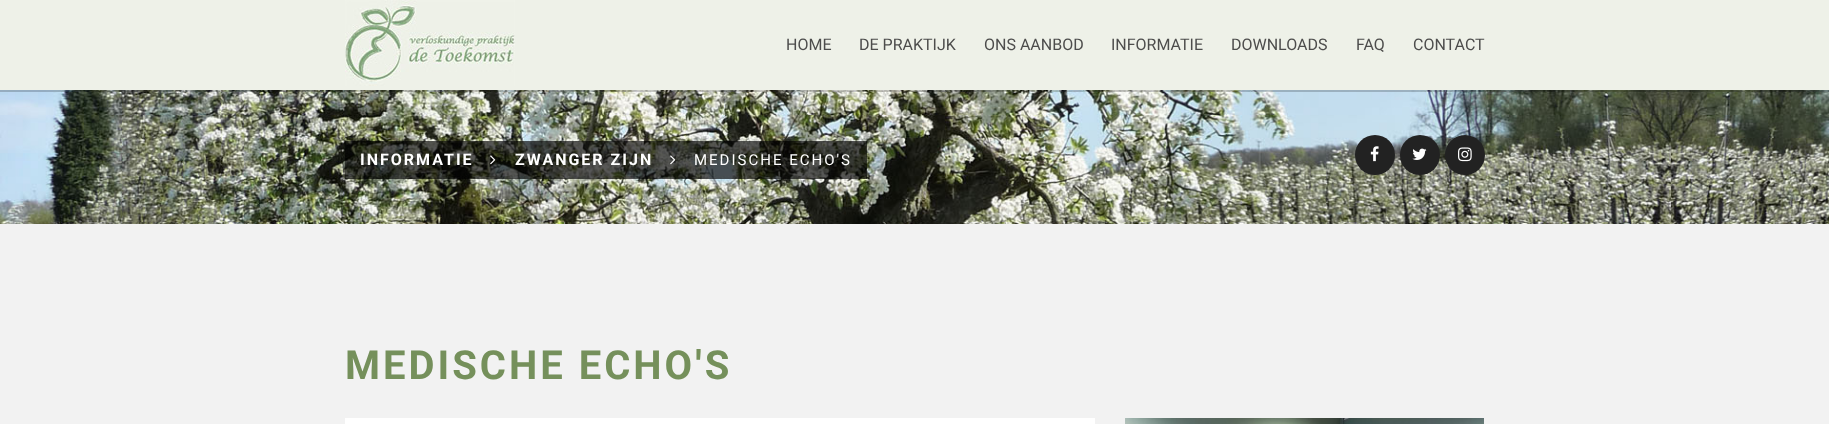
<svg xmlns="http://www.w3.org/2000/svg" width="1829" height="424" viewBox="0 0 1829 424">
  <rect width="100%" height="100%" fill="#f2f2f2"/>
  <image x="0" y="90" width="1829" height="134" href="img/2.png"/>
  <path d="M0 2h1829v90H0z" fill="#00000033" filter="blur(0.5px)"/>
  <path d="M0 0h1829v90H0z" fill="#eef1e8"/>
  <image x="345" y="0" width="170" height="86" href="img/1.png"/>
  <path d="M345 141h522v38H345z" fill="#000000a6"/>
  <image x="490" y="155" width="6" height="10" href="img/3.png"/>
  <image x="670" y="155" width="6" height="10" href="img/4.png"/>
  <circle cx="1375" cy="155" r="20" fill="#222"/>
  <image x="1370" y="146" width="9" height="16" href="img/5.png"/>
  <circle cx="1420" cy="155" r="20" fill="#222"/>
  <image x="1412" y="148" width="15" height="12" href="img/6.png"/>
  <circle cx="1465" cy="155" r="20" fill="#222"/>
  <image x="1458" y="147" width="14" height="15" href="img/7.png"/>
  <path d="M345 418h750v6H345z" fill="#fff"/>
  <path d="M1125 420h359v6H1125z" fill="#00000033" filter="blur(0.5px)"/>
  <image x="1125" y="418" width="359" height="6" href="img/8.png"/>
  <g font-family="Roboto" font-size="16" fill="#4d4d4c">
    <text x="786" y="50">HOME</text>
    <text x="859" y="50">DE PRAKTIJK</text>
    <text x="984" y="50">ONS AANBOD</text>
    <text x="1111" y="50">INFORMATIE</text>
    <text x="1231" y="50">DOWNLOADS</text>
    <text x="1356" y="50">FAQ</text>
    <text x="1413" y="50">CONTACT</text>
  </g>
  <g font-family="Roboto" font-size="16" font-weight="bold" letter-spacing="2" fill="#fff">
    <text x="360" y="165">INFORMATIE</text>
    <text x="515" y="165">ZWANGER ZIJN</text>
  </g>
  <text x="694" y="165" font-family="Roboto" font-size="15" letter-spacing="2" fill="#fff">MEDISCHE ECHO'S</text>
  <text x="345" y="379" font-family="Roboto" font-size="40" font-weight="bold" letter-spacing="3" fill="#75905b">MEDISCHE ECHO'S</text>
</svg>
